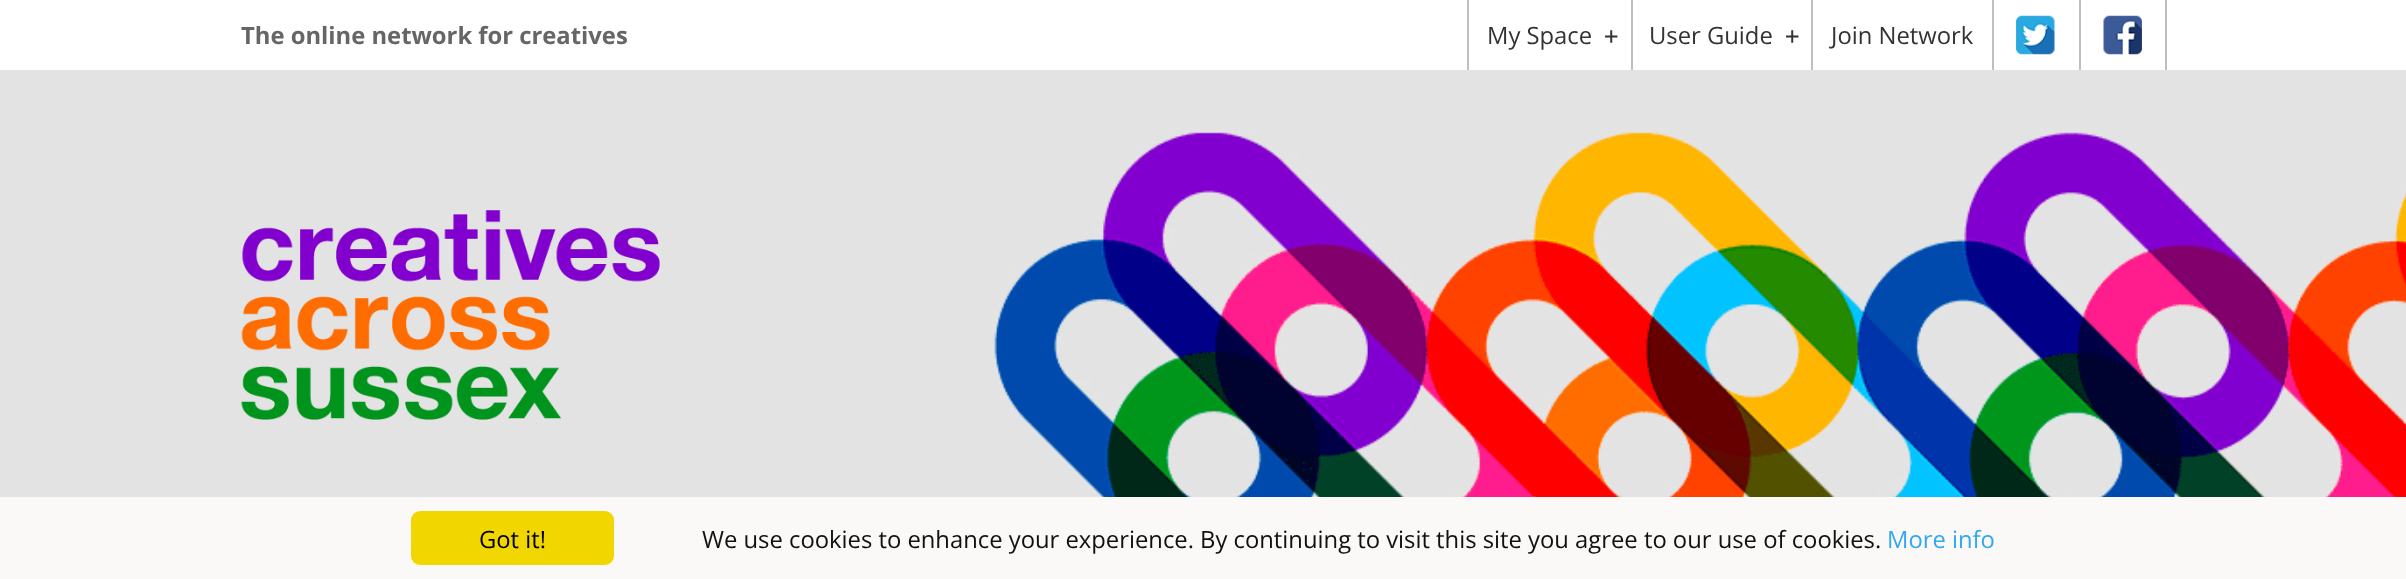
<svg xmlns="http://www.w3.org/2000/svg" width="2406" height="579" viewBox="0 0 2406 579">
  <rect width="100%" height="100%" fill="#fff"/>
  <path d="M1467 0h2v70H1467z" fill="#bebebe"/>
  <path d="M1631 0h2v70H1631z" fill="#bebebe"/>
  <path d="M1811 0h2v70H1811z" fill="#bebebe"/>
  <image x="2016" y="15" width="39" height="40" href="img/1.png"/>
  <path d="M1992 0h2v70H1992z" fill="#bebebe"/>
  <image x="2103" y="15" width="39" height="40" href="img/2.png"/>
  <path d="M2165 0h2v70H2165z" fill="#bebebe"/>
  <path d="M2079 0h2v70H2079z" fill="#bebebe"/>
  <image x="0" y="70" width="2406" height="427" href="img/4.png"/>
  <image x="241" y="210" width="419" height="210" href="img/3.png"/>
  <path d="M0 497h2406v82H0z" fill="#fbf8f8"/>
  <rect x="411" y="511" width="203" height="54" rx="9" fill="#f1d600"/>
  <text x="241" y="44" font-family="Open Sans" font-size="23.8" font-weight="bold" fill="#666">The online network for creatives</text>
  <text x="1487" y="44" font-family="Open Sans" font-size="23.8" fill="#333">My Space</text>
  <text x="1604" y="44" font-family="DejaVu Sans Mono" font-size="24" fill="#333">+</text>
  <text x="1649" y="44" font-family="Open Sans" font-size="23.8" fill="#333">User Guide</text>
  <text x="1785" y="44" font-family="DejaVu Sans Mono" font-size="24" fill="#333">+</text>
  <text x="1831" y="44" font-family="Open Sans" font-size="23.8" fill="#333">Join Network</text>
  <text x="479" y="548" font-family="Open Sans" font-size="23.8" fill="#000">Got it!</text>
  <text x="702" y="548" font-family="Open Sans" font-size="23.8" fill="#111">We use cookies to enhance your experience. By continuing to visit this site you agree to our use of cookies.</text>
  <text x="1887" y="548" font-family="Open Sans" font-size="23.8" fill="#31a8f0">More info</text>
</svg>
